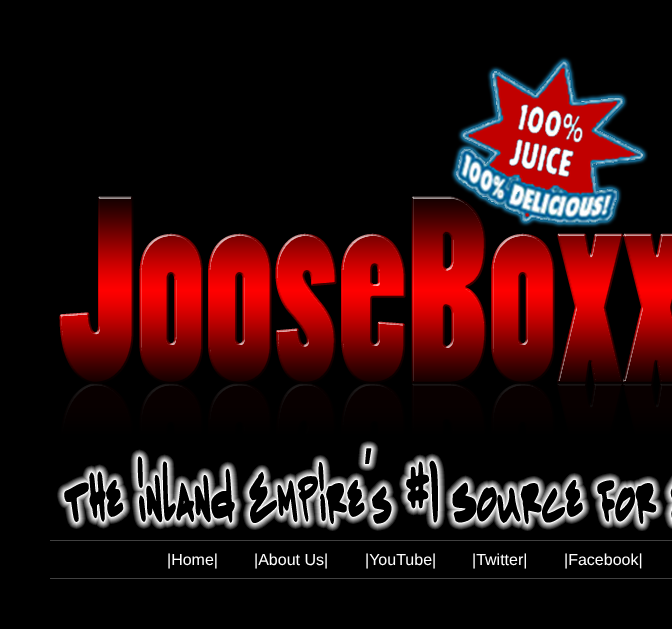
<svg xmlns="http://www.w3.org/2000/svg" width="672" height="629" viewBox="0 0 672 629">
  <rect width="100%" height="100%" fill="#000"/>
  <image x="57" y="56" width="615" height="475" href="img/1.png"/>
  <path d="M50 540h622v1H50z" fill="#404040"/>
  <path d="M50 578h622v1H50z" fill="#404040"/>
  <g font-family="Liberation Sans" font-size="16" fill="#fff">
    <text x="167" y="565">|Home|</text>
    <text x="254" y="565">|About Us|</text>
    <text x="365" y="565">|YouTube|</text>
    <text x="472" y="565">|Twitter|</text>
    <text x="564" y="565">|Facebook|</text>
  </g>
</svg>
